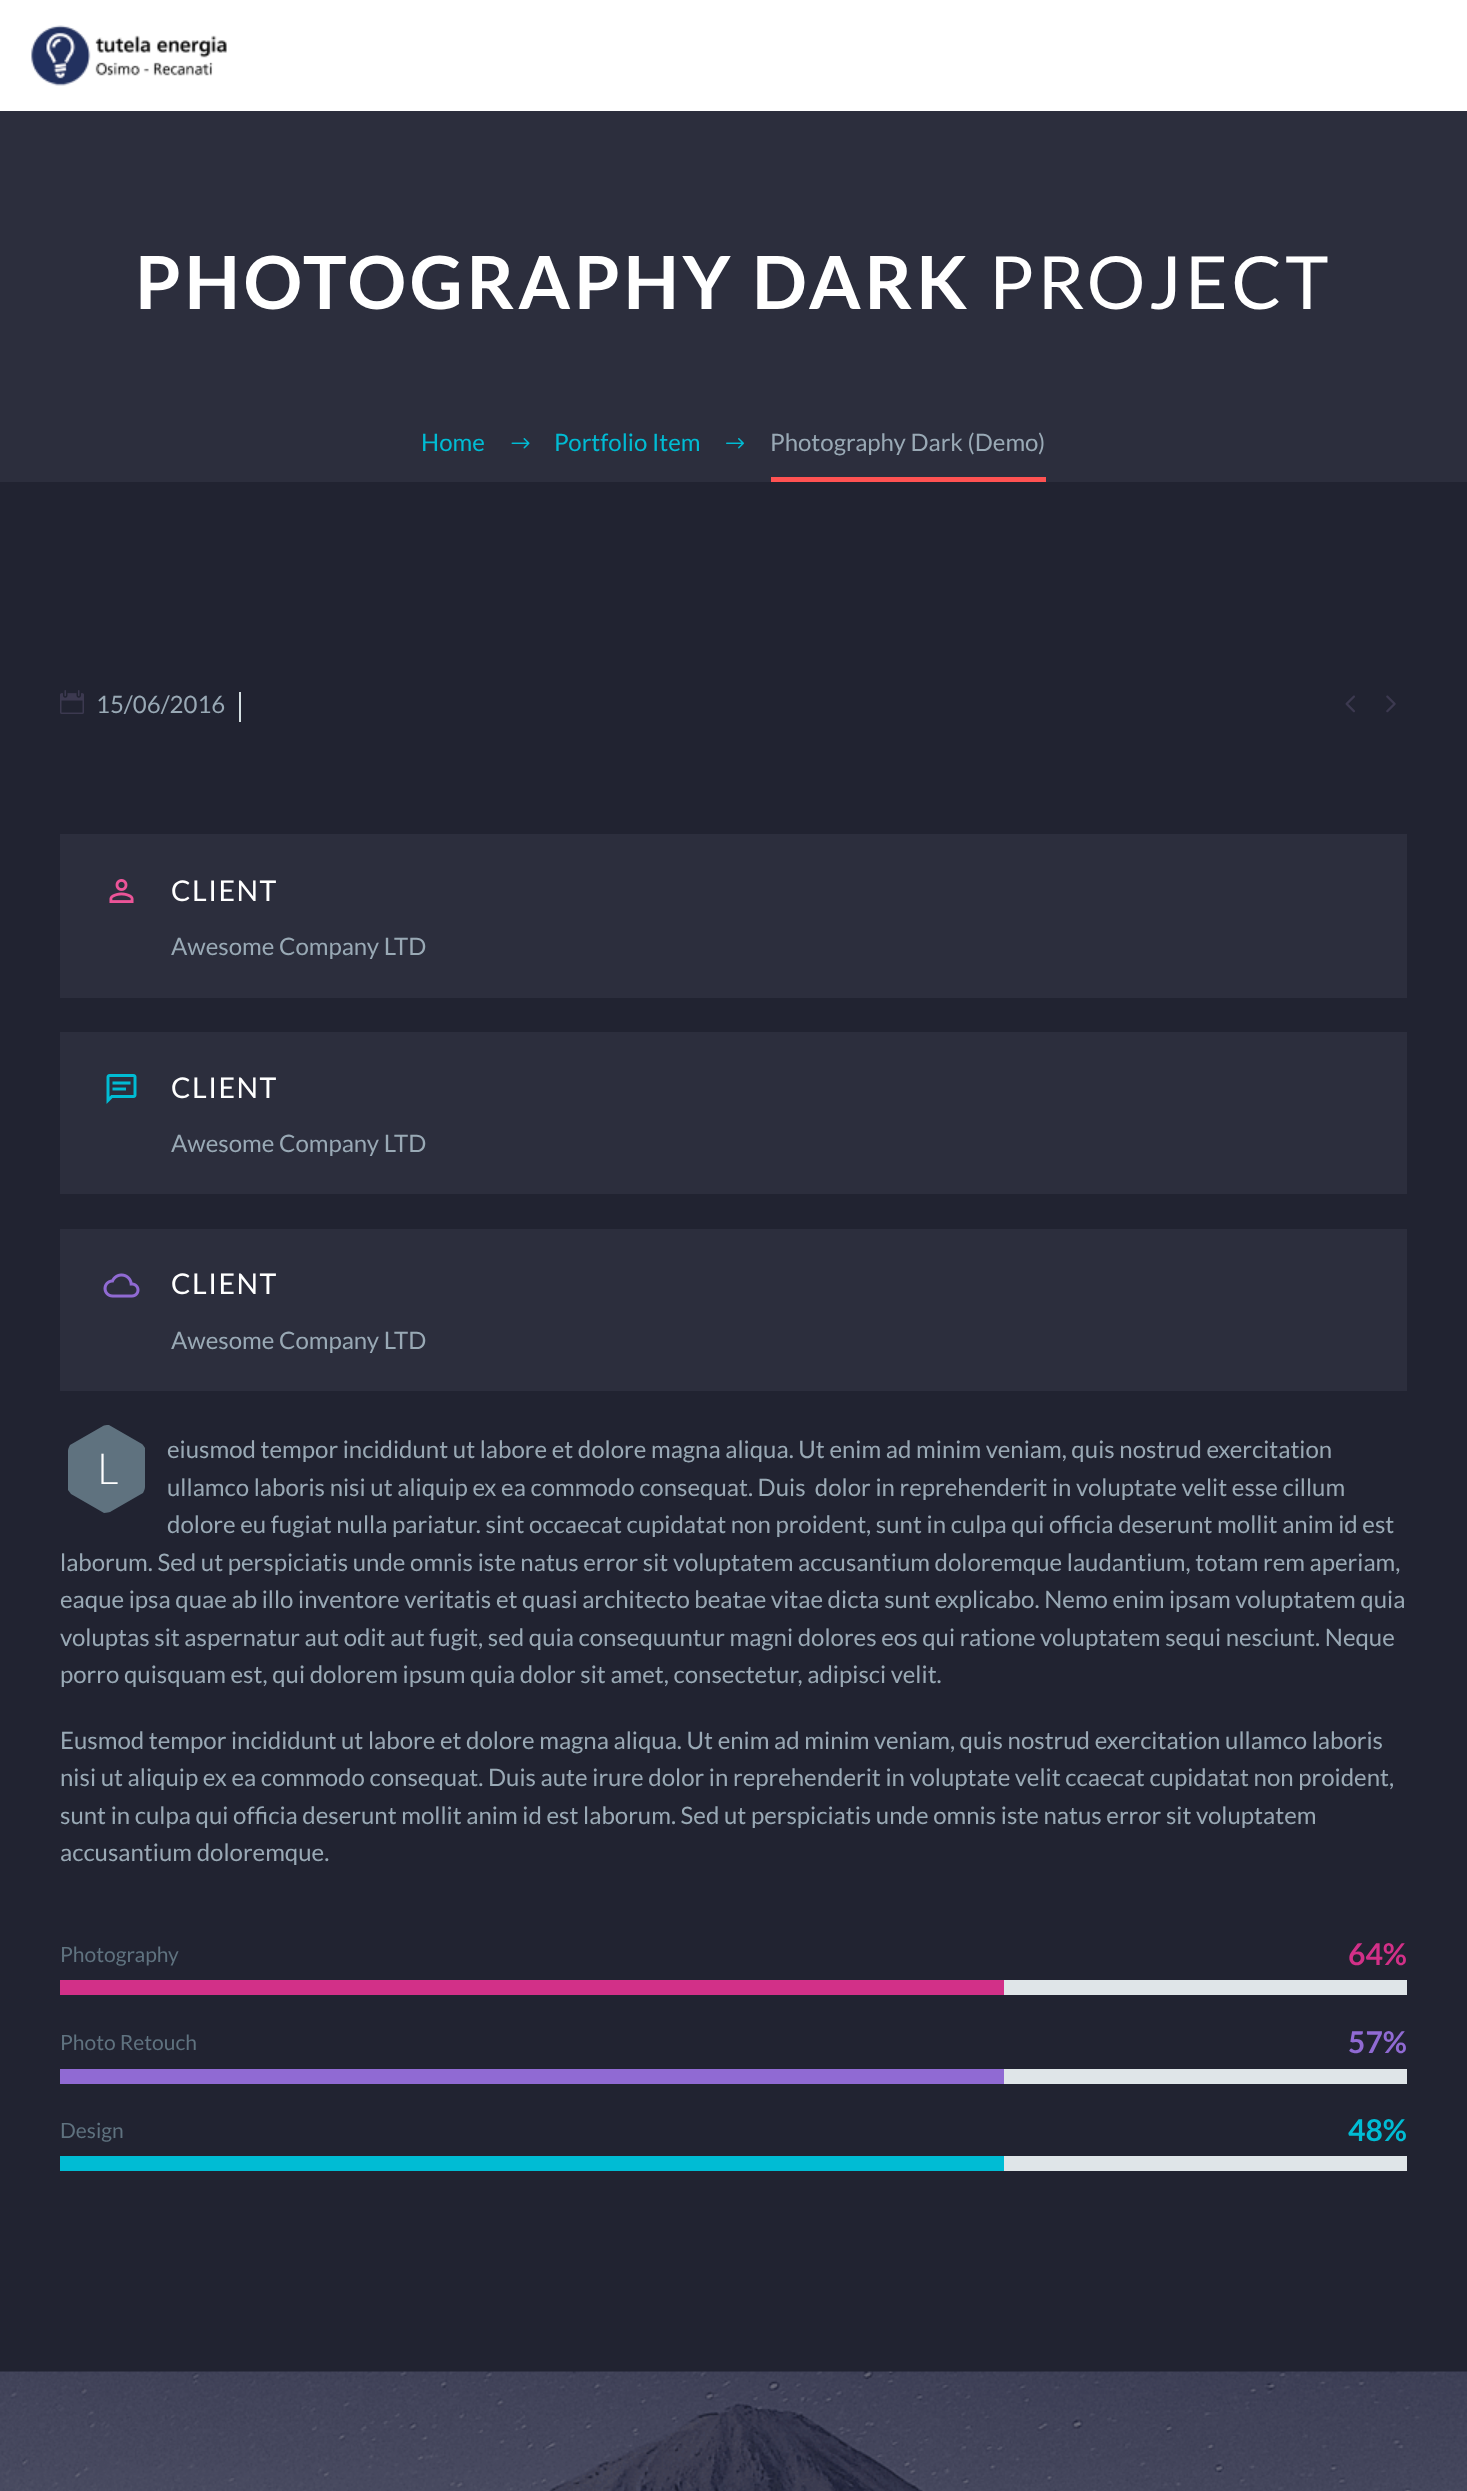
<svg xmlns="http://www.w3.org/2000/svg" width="1467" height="2491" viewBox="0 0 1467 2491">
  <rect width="100%" height="100%" fill="#fff"/>
  <image x="31" y="25" width="196" height="61" href="img/1.png"/>
  <path d="M0 111h1467v371H0z" fill="#2c2e3d"/>
  <image x="511" y="438" width="19" height="11" href="img/2.png"/>
  <image x="726" y="438" width="18" height="11" href="img/3.png"/>
  <path d="M771 477h275v5H771z" fill="#ff5252"/>
  <path d="M0 482h1467v1890H0z" fill="#212331"/>
  <image x="60" y="690" width="24" height="24" href="img/4.png"/>
  <path d="M239 692h2v30H239z" fill="#d4dee1"/>
  <image x="1345" y="695" width="10" height="18" href="img/5.png"/>
  <image x="1386" y="695" width="10" height="18" href="img/6.png"/>
  <path d="M60 834h1347v164H60z" fill="#2c2e3d"/>
  <image x="109" y="879" width="13" height="24" href="img/7.png"/>
  <image x="122" y="879" width="12" height="24" href="img/8.png"/>
  <path d="M60 1032h1347v162H60z" fill="#2c2e3d"/>
  <image x="106" y="1074" width="16" height="30" href="img/9.png"/>
  <image x="122" y="1074" width="15" height="24" href="img/10.png"/>
  <path d="M60 1229h1347v162H60z" fill="#2c2e3d"/>
  <image x="103" y="1273" width="19" height="25" href="img/11.png"/>
  <image x="122" y="1273" width="18" height="25" href="img/12.png"/>
  <path d="M70 1445L103 1426C104 1425 106 1425 109 1425L142 1444C143 1445 144 1446 145 1448V1487C145 1489 144 1491 143 1493L110 1512C109 1512 107 1513 104 1513L71 1494C70 1493 69 1491 68 1490V1451C68 1449 69 1447 70 1445Z" fill="#5f727f"/>
  <path d="M1004 1980h403v15H1004z" fill="#dfe5e8"/>
  <path d="M60 1980h944v15H60z" fill="#d23088"/>
  <path d="M1004 2069h403v15H1004z" fill="#dfe5e8"/>
  <path d="M60 2069h944v15H60z" fill="#906ad3"/>
  <path d="M1004 2156h403v15H1004z" fill="#dfe5e8"/>
  <path d="M60 2156h944v15H60z" fill="#00bcd4"/>
  <image x="0" y="2371" width="1467" height="120" href="img/13.png"/>
  <text x="135" y="309" font-family="Lato" font-size="73.3" font-weight="bold" letter-spacing="3.7" fill="#fff">PHOTOGRAPHY DARK</text>
  <text x="989" y="309" font-family="Lato" font-size="73.3" letter-spacing="3.7" fill="#fff">PROJECT</text>
  <g font-family="Lato" font-size="24" fill="#00bcd4">
    <text x="421" y="451">Home</text>
    <text x="554" y="451">Portfolio Item</text>
  </g>
  <g font-family="Lato" font-size="24" fill="#99a9b5">
    <text x="770" y="451">Photography Dark (Demo)</text>
    <text x="96" y="713">15/06/2016</text>
  </g>
  <text x="171" y="901" font-family="Lato" font-size="28.5" letter-spacing="1.5" fill="#fff">CLIENT</text>
  <text x="171" y="955" font-family="Lato" font-size="24" fill="#99a9b5">Awesome Company LTD</text>
  <text x="171" y="1098" font-family="Lato" font-size="28.5" letter-spacing="1.5" fill="#fff">CLIENT</text>
  <text x="171" y="1152" font-family="Lato" font-size="24" fill="#99a9b5">Awesome Company LTD</text>
  <text x="171" y="1294" font-family="Lato" font-size="28.5" letter-spacing="1.5" fill="#fff">CLIENT</text>
  <g font-family="Lato" font-size="24" fill="#99a9b5">
    <text x="171" y="1349">Awesome Company LTD</text>
    <text x="167" y="1458">eiusmod tempor incididunt ut labore et dolore magna aliqua. Ut enim ad minim veniam, quis nostrud exercitation</text>
    <text x="167" y="1496" xml:space="preserve">ullamco laboris nisi ut aliquip ex ea commodo consequat. Duis  dolor in reprehenderit in voluptate velit esse cillum</text>
    <text x="167" y="1533">dolore eu fugiat nulla pariatur. sint occaecat cupidatat non proident, sunt in culpa qui officia deserunt mollit anim id est</text>
    <text x="60" y="1571">laborum. Sed ut perspiciatis unde omnis iste natus error sit voluptatem accusantium doloremque laudantium, totam rem aperiam,</text>
    <text x="60" y="1608">eaque ipsa quae ab illo inventore veritatis et quasi architecto beatae vitae dicta sunt explicabo. Nemo enim ipsam voluptatem quia</text>
    <text x="60" y="1646">voluptas sit aspernatur aut odit aut fugit, sed quia consequuntur magni dolores eos qui ratione voluptatem sequi nesciunt. Neque</text>
    <text x="60" y="1683">porro quisquam est, qui dolorem ipsum quia dolor sit amet, consectetur, adipisci velit.</text>
  </g>
  <text x="97" y="1484" font-family="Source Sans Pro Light" font-size="46" font-weight="300" fill="#fff">L</text>
  <g font-family="Lato" font-size="24" fill="#99a9b5">
    <text x="60" y="1749">Eusmod tempor incididunt ut labore et dolore magna aliqua. Ut enim ad minim veniam, quis nostrud exercitation ullamco laboris</text>
    <text x="60" y="1786">nisi ut aliquip ex ea commodo consequat. Duis aute irure dolor in reprehenderit in voluptate velit ccaecat cupidatat non proident,</text>
    <text x="60" y="1824">sunt in culpa qui officia deserunt mollit anim id est laborum. Sed ut perspiciatis unde omnis iste natus error sit voluptatem</text>
    <text x="60" y="1861">accusantium doloremque.</text>
  </g>
  <text x="60" y="1962" font-family="Lato" font-size="21" fill="#5f727f">Photography</text>
  <text x="1348" y="1965" font-family="Lato" font-size="30" font-weight="bold" fill="#d23088">64%</text>
  <text x="60" y="2050" font-family="Lato" font-size="21" fill="#5f727f">Photo Retouch</text>
  <text x="1348" y="2053" font-family="Lato" font-size="30" font-weight="bold" fill="#906ad3">57%</text>
  <text x="60" y="2138" font-family="Lato" font-size="21" fill="#5f727f">Design</text>
  <text x="1348" y="2141" font-family="Lato" font-size="30" font-weight="bold" fill="#00bcd4">48%</text>
</svg>
